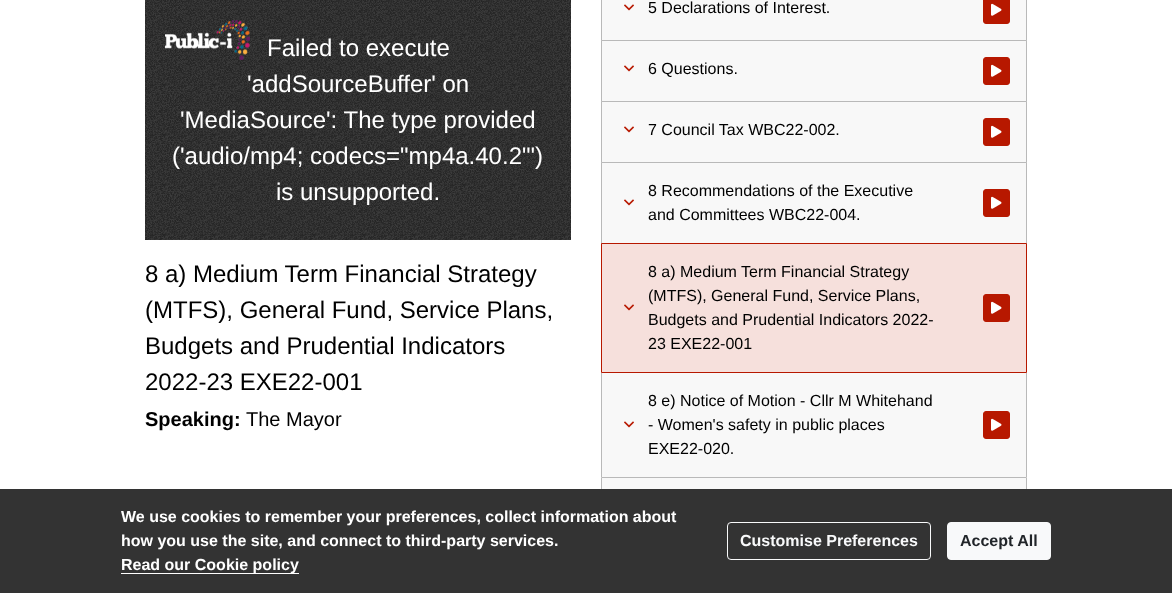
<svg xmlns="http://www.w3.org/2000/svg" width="1172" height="593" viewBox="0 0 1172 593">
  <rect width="100%" height="100%" fill="#fff"/>
  <path d="M145 0h426v240H145z" fill="#000"/>
  <image x="145" y="0" width="426" height="240" href="img/2.png"/>
  <image x="165" y="20" width="85" height="40" href="img/1.png"/>
  <path d="M601.5 -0.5h425v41H601.5z" fill="#f8f8f8" stroke="#b9b9b9"/>
  <image x="624" y="4" width="10" height="7" href="img/3.png"/>
  <rect x="983.5" y="-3.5" width="26" height="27" rx="2.5" fill="#b71800" stroke="#b71800"/>
  <image x="991" y="3" width="11" height="13" href="img/4.png"/>
  <path d="M601.5 40.5h425v61H601.5z" fill="#f8f8f8" stroke="#b9b9b9"/>
  <image x="624" y="65" width="10" height="7" href="img/3.png"/>
  <rect x="983.5" y="57.5" width="26" height="27" rx="2.5" fill="#b71800" stroke="#b71800"/>
  <image x="991" y="64" width="11" height="13" href="img/4.png"/>
  <path d="M601.5 101.5h425v61H601.5z" fill="#f8f8f8" stroke="#b9b9b9"/>
  <image x="624" y="126" width="10" height="7" href="img/3.png"/>
  <rect x="983.5" y="118.5" width="26" height="27" rx="2.5" fill="#b71800" stroke="#b71800"/>
  <image x="991" y="125" width="11" height="13" href="img/4.png"/>
  <path d="M601.5 162.5h425v81H601.5z" fill="#f8f8f8" stroke="#b9b9b9"/>
  <image x="624" y="199" width="10" height="7" href="img/3.png"/>
  <rect x="983.5" y="189.5" width="26" height="27" rx="2.5" fill="#b71800" stroke="#b71800"/>
  <image x="991" y="196" width="11" height="13" href="img/4.png"/>
  <path d="M601.5 243.5h425v129H601.5z" fill="#f6e0dc" stroke="#b71800"/>
  <image x="624" y="304" width="10" height="7" href="img/5.png"/>
  <rect x="983.5" y="294.5" width="26" height="27" rx="2.5" fill="#b71800" stroke="#b71800"/>
  <image x="991" y="301" width="11" height="13" href="img/4.png"/>
  <path d="M602 373h424v104H602z" fill="#f8f8f8"/>
  <path d="M1026 373h1v104H1026z" fill="#b9b9b9"/>
  <path d="M601 373h1v104H601z" fill="#b9b9b9"/>
  <image x="624" y="421" width="10" height="7" href="img/3.png"/>
  <rect x="983.5" y="411.5" width="26" height="27" rx="2.5" fill="#b71800" stroke="#b71800"/>
  <image x="991" y="418" width="11" height="13" href="img/4.png"/>
  <path d="M602 478h424v11H602z" fill="#f8f8f8"/>
  <path d="M601.5 477.5h425v105H601.5z" fill="none" stroke="#b9b9b9"/>
  <path d="M0 489h1172v104H0z" fill="#333"/>
  <path d="M121 573h178v1H121z" fill="#fff"/>
  <rect x="727.5" y="522.5" width="203" height="37" rx="3.5" fill="none" stroke="#f8f9fa"/>
  <rect x="947.5" y="522.5" width="103" height="37" rx="3.5" fill="#f8f9fa" stroke="#f8f9fa"/>
  <g font-family="Liberation Sans" font-size="24" fill="#fff">
    <text x="267" y="56">Failed to execute</text>
    <text x="247" y="92">'addSourceBuffer' on</text>
    <text x="180" y="128">'MediaSource': The type provided</text>
    <text x="172" y="164">('audio/mp4; codecs="mp4a.40.2"')</text>
    <text x="276" y="200">is unsupported.</text>
  </g>
  <g font-family="Liberation Sans" font-size="24" fill="#000">
    <text x="145" y="282">8 a) Medium Term Financial Strategy</text>
    <text x="145" y="318">(MTFS), General Fund, Service Plans,</text>
    <text x="145" y="354">Budgets and Prudential Indicators</text>
    <text x="145" y="390">2022-23 EXE22-001</text>
  </g>
  <text x="145" y="426" font-family="Liberation Sans" font-size="20" font-weight="bold" fill="#000">Speaking:</text>
  <text x="246" y="426" font-family="Liberation Sans" font-size="20" fill="#000">The Mayor</text>
  <g font-family="Liberation Sans" font-size="16" fill="#000">
    <text x="648" y="13">5 Declarations of Interest.</text>
    <text x="648" y="74">6 Questions.</text>
    <text x="648" y="135">7 Council Tax WBC22-002.</text>
    <text x="648" y="196">8 Recommendations of the Executive</text>
    <text x="648" y="220">and Committees WBC22-004.</text>
    <text x="648" y="277">8 a) Medium Term Financial Strategy</text>
    <text x="648" y="301">(MTFS), General Fund, Service Plans,</text>
    <text x="648" y="325">Budgets and Prudential Indicators 2022-</text>
    <text x="648" y="349">23 EXE22-001</text>
    <text x="648" y="406">8 e) Notice of Motion - Cllr M Whitehand</text>
    <text x="648" y="430">- Women's safety in public places</text>
    <text x="648" y="454">EXE22-020.</text>
  </g>
  <g font-family="Liberation Sans" font-size="16" font-weight="bold" fill="#fff">
    <text x="121" y="522">We use cookies to remember your preferences, collect information about</text>
    <text x="121" y="546">how you use the site, and connect to third-party services.</text>
    <text x="121" y="570">Read our Cookie policy</text>
  </g>
  <text x="740" y="546" font-family="Liberation Sans" font-size="16" font-weight="bold" fill="#f8f9fa">Customise Preferences</text>
  <text x="960" y="546" font-family="Liberation Sans" font-size="16" font-weight="bold" fill="#212529">Accept All</text>
</svg>
